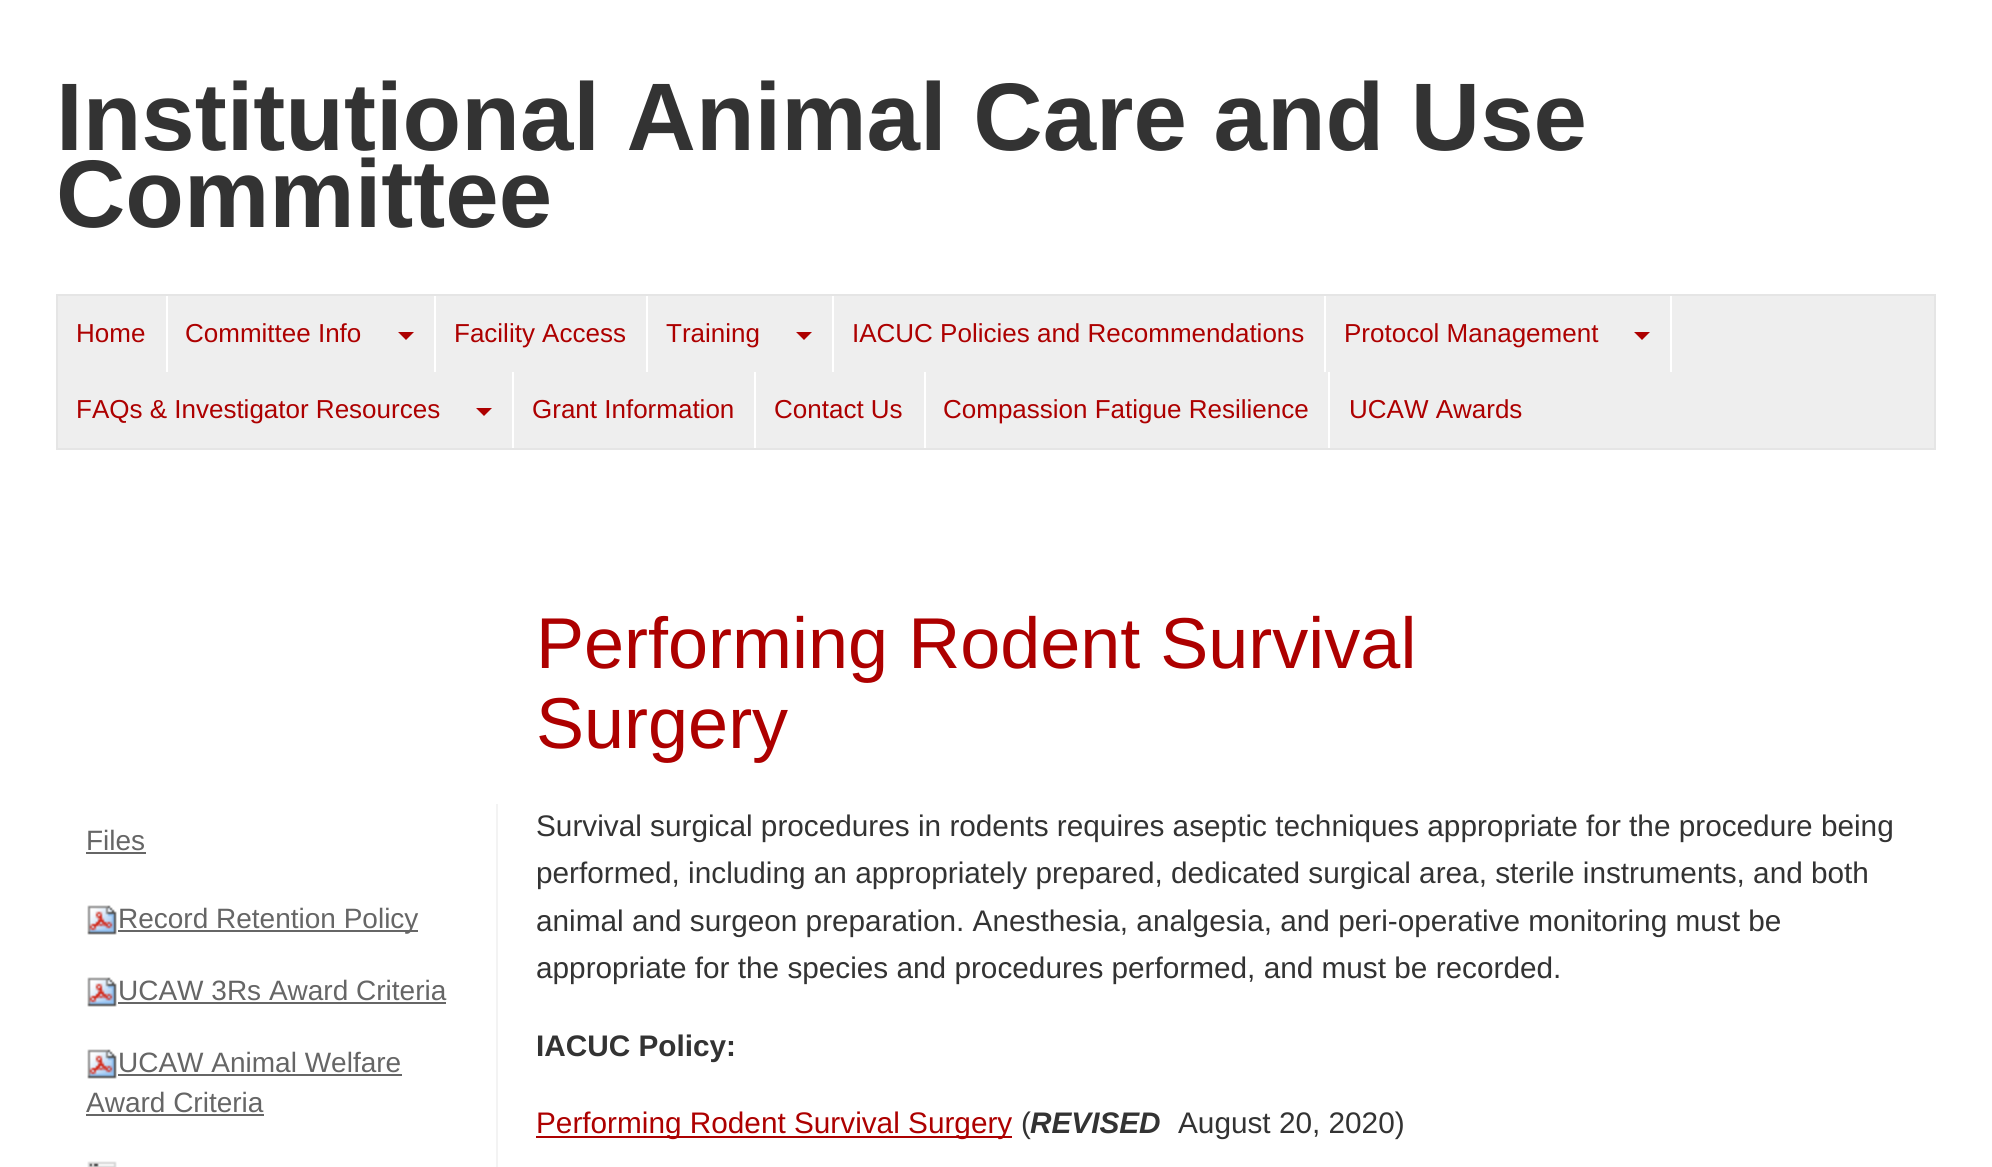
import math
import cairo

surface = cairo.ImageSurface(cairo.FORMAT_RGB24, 1992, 1167)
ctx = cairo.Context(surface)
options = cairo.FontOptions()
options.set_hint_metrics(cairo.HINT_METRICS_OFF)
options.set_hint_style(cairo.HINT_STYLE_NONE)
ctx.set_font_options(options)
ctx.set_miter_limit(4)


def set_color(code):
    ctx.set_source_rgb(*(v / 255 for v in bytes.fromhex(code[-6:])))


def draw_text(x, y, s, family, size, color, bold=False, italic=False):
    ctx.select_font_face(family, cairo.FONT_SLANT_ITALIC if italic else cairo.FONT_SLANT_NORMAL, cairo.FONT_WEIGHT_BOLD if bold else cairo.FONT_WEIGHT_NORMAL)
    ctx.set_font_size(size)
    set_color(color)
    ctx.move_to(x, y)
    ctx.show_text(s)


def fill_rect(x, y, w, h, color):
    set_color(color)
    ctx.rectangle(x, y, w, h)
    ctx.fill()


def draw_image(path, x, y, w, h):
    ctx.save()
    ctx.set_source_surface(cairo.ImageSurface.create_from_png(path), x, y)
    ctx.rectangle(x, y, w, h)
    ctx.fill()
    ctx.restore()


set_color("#ffffff")
ctx.paint()
draw_text(56, 150, "Institutional Animal Care and Use", "Liberation Sans", 96, "#333333", bold=True)
draw_text(56, 227, "Committee", "Liberation Sans", 96, "#333333", bold=True)
set_color("#eeeeee")
ctx.rectangle(57, 295, 1878, 154)
ctx.fill_preserve()
set_color("#e5e5e5")
ctx.stroke()
draw_text(76, 342, "Home", "Liberation Sans", 26, "#ad0000")
fill_rect(166, 296, 2, 76, "#ffffff")
draw_text(185, 342, "Committee Info", "Liberation Sans", 26, "#ad0000")
ctx.new_path()
ctx.move_to(398, 332)
ctx.line_to(414, 332)
ctx.line_to(406, 340)
ctx.close_path()
ctx.fill()
fill_rect(434, 296, 2, 76, "#ffffff")
draw_text(454, 342, "Facility Access", "Liberation Sans", 26, "#ad0000")
fill_rect(646, 296, 2, 76, "#ffffff")
draw_text(666, 342, "Training", "Liberation Sans", 26, "#ad0000")
ctx.new_path()
ctx.move_to(796, 332)
ctx.line_to(812, 332)
ctx.line_to(804, 340)
ctx.close_path()
ctx.fill()
fill_rect(832, 296, 2, 76, "#ffffff")
draw_text(852, 342, "IACUC Policies and Recommendations", "Liberation Sans", 26, "#ad0000")
fill_rect(1324, 296, 2, 76, "#ffffff")
draw_text(1344, 342, "Protocol Management", "Liberation Sans", 26, "#ad0000")
ctx.new_path()
ctx.move_to(1634, 332)
ctx.line_to(1650, 332)
ctx.line_to(1642, 340)
ctx.close_path()
ctx.fill()
fill_rect(1670, 296, 2, 76, "#ffffff")
draw_text(76, 418, "FAQs & Investigator Resources", "Liberation Sans", 26, "#ad0000")
ctx.new_path()
ctx.move_to(476, 408)
ctx.line_to(492, 408)
ctx.line_to(484, 416)
ctx.close_path()
ctx.fill()
fill_rect(512, 372, 2, 76, "#ffffff")
draw_text(532, 418, "Grant Information", "Liberation Sans", 26, "#ad0000")
fill_rect(754, 372, 2, 76, "#ffffff")
draw_text(774, 418, "Contact Us", "Liberation Sans", 26, "#ad0000")
fill_rect(924, 372, 2, 76, "#ffffff")
draw_text(943, 418, "Compassion Fatigue Resilience", "Liberation Sans", 26, "#ad0000")
fill_rect(1328, 372, 2, 76, "#ffffff")
draw_text(1349, 418, "UCAW Awards", "Liberation Sans", 26, "#ad0000")
draw_text(536, 668, "Performing Rodent Survival", "Liberation Sans", 72, "#ad0000")
draw_text(536, 748, "Surgery", "Liberation Sans", 72, "#ad0000")
draw_text(86, 850, "Files", "Liberation Sans", 28, "#666666")
fill_rect(86, 852, 60, 2, "#666666")
draw_image("assets/img1.png", 87, 905, 30, 30)
fill_rect(118, 930, 300, 2, "#666666")
draw_text(118, 928, "Record Retention Policy", "Liberation Sans", 28, "#666666")
draw_image("assets/img1.png", 87, 977, 30, 30)
draw_text(118, 1000, "UCAW 3Rs Award Criteria", "Liberation Sans", 28, "#666666")
fill_rect(118, 1002, 328, 2, "#666666")
draw_image("assets/img1.png", 87, 1049, 30, 30)
draw_text(118, 1072, "UCAW Animal Welfare", "Liberation Sans", 28, "#666666")
fill_rect(118, 1074, 284, 2, "#666666")
draw_text(86, 1112, "Award Criteria", "Liberation Sans", 28, "#666666")
fill_rect(86, 1114, 178, 2, "#666666")
draw_image("assets/img2.png", 87, 1161, 30, 6)
fill_rect(496, 804, 2, 363, "#f3f3f3")
draw_text(536, 836, "Survival surgical procedures in rodents requires aseptic techniques appropriate for the procedure being", "Liberation Sans", 29.75, "#333333")
draw_text(536, 883, "performed, including an appropriately prepared, dedicated surgical area, sterile instruments, and both", "Liberation Sans", 29.75, "#333333")
draw_text(536, 931, "animal and surgeon preparation. Anesthesia, analgesia, and peri-operative monitoring must be", "Liberation Sans", 29.75, "#333333")
draw_text(536, 978, "appropriate for the species and procedures performed, and must be recorded.", "Liberation Sans", 29.75, "#333333")
draw_text(536, 1056, "IACUC Policy:", "Liberation Sans", 29.75, "#333333", bold=True)
fill_rect(536, 1136, 476, 2, "#ad0000")
draw_text(536, 1133, "Performing Rodent Survival Surgery", "Liberation Sans", 29.75, "#ad0000")
draw_text(1021, 1133, "(", "Liberation Sans", 29.75, "#333333")
draw_text(1030, 1133, "REVISED", "Liberation Sans", 29.75, "#333333", bold=True, italic=True)
draw_text(1178, 1133, "August 20, 2020)", "Liberation Sans", 29.75, "#333333")
surface.write_to_png("output.png")
